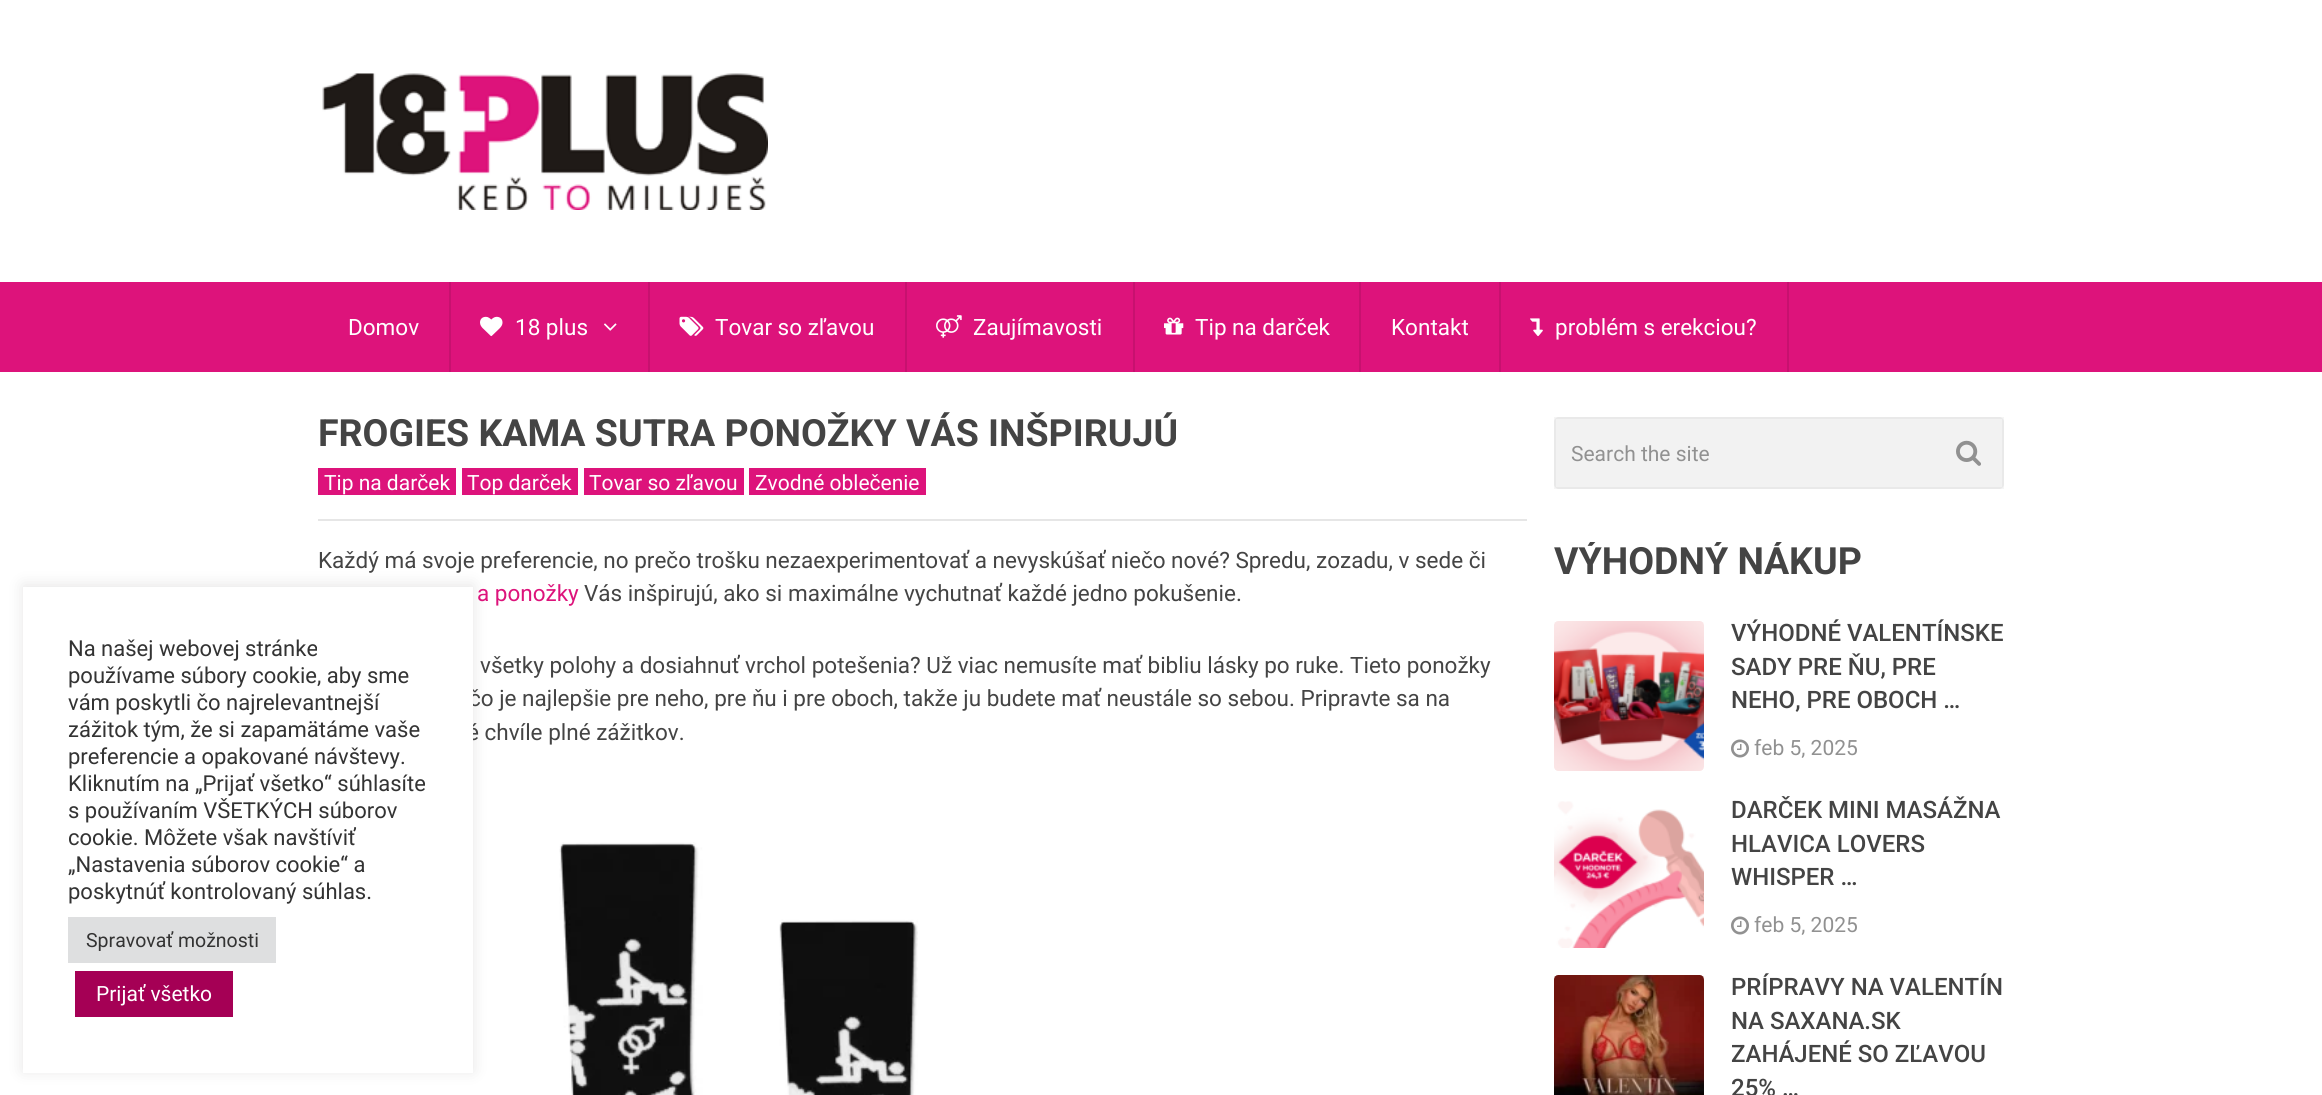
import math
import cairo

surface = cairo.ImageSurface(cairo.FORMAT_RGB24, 2322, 1095)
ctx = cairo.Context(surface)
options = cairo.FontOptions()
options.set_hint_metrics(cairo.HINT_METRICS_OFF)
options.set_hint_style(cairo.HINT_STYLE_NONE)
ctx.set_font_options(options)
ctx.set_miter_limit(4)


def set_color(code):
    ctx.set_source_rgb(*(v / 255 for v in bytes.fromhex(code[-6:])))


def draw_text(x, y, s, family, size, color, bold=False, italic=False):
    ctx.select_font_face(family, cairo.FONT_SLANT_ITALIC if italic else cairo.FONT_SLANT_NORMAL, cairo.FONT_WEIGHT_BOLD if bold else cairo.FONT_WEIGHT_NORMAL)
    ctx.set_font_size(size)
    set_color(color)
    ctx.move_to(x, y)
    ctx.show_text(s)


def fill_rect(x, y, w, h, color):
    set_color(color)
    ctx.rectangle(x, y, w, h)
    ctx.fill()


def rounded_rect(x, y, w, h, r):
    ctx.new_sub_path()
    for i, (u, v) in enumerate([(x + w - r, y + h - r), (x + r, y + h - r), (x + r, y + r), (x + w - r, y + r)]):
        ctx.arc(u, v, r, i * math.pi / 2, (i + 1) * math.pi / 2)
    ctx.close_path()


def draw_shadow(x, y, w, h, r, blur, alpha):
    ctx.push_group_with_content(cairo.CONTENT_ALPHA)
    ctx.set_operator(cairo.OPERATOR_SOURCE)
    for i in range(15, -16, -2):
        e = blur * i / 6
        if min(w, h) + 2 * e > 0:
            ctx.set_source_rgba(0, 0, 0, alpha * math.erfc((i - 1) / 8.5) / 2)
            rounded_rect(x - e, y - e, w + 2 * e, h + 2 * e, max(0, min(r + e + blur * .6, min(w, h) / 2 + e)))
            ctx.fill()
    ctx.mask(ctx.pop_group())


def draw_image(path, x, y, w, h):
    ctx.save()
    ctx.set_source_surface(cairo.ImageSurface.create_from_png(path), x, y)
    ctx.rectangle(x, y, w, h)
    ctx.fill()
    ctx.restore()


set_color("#ffffff")
ctx.paint()
set_color("#acabab")
draw_shadow(23, 585, 450, 486, 0, 7.5, 0.3)
draw_text(469, 706, "čo je najlepšie pre neho, pre ňu i pre oboch, takže ju budete mať neustále so sebou. Pripravte sa na", "Roboto", 22.5, "#444444")
draw_text(467, 740, "é chvíle plné zážitkov.", "Roboto", 22.5, "#444444")
fill_rect(23, 587, 450, 486, "#ffffff")
draw_text(68, 656, "Na našej webovej stránke", "Roboto", 22, "#333333")
draw_text(68, 683, "používame súbory cookie, aby sme", "Roboto", 22, "#333333")
draw_text(68, 710, "vám poskytli čo najrelevantnejší", "Roboto", 22, "#333333")
draw_text(68, 737, "zážitok tým, že si zapamätáme vaše", "Roboto", 22, "#333333")
draw_text(68, 764, "preferencie a opakované návštevy.", "Roboto", 22, "#333333")
draw_text(68, 791, "Kliknutím na „Prijať všetko“ súhlasíte", "Roboto", 22, "#333333")
draw_text(68, 818, "s používaním VŠETKÝCH súborov", "Roboto", 22, "#333333")
draw_text(68, 845, "cookie. Môžete však navštíviť", "Roboto", 22, "#333333")
draw_text(68, 872, "„Nastavenia súborov cookie“ a", "Roboto", 22, "#333333")
draw_text(68, 899, "poskytnúť kontrolovaný súhlas.", "Roboto", 22, "#333333")
fill_rect(68, 917, 208, 46, "#dedfe0")
draw_text(86, 947, "Spravovať možnosti", "Roboto", 19.5, "#333333")
fill_rect(75, 971, 158, 46, "#a50055")
draw_text(96, 1001, "Prijať všetko", "Roboto", 21, "#ffffff")
draw_image("assets/img1.png", 322, 73, 446, 137)
fill_rect(0, 282, 2322, 90, "#dd137b")
fill_rect(449, 282, 2, 90, "#c7116f")
draw_text(348, 335, "Domov", "Roboto", 22.5, "#ffffff")
fill_rect(648, 282, 2, 90, "#c7116f")
draw_image("assets/img2.png", 480, 316, 23, 21)
draw_text(515, 335, "18 plus", "Roboto", 22.5, "#ffffff")
draw_image("assets/img3.png", 604, 323, 13, 8)
fill_rect(905, 282, 2, 90, "#c7116f")
draw_image("assets/img4.png", 679, 316, 25, 20)
draw_text(715, 335, "Tovar so zľavou", "Roboto", 22.5, "#ffffff")
fill_rect(1133, 282, 2, 90, "#c7116f")
draw_image("assets/img5.png", 936, 315, 26, 23)
draw_text(973, 335, "Zaujímavosti", "Roboto", 22.5, "#ffffff")
fill_rect(1359, 282, 2, 90, "#c7116f")
draw_image("assets/img6.png", 1164, 317, 20, 18)
draw_text(1195, 335, "Tip na darček", "Roboto", 22.5, "#ffffff")
fill_rect(1499, 282, 2, 90, "#c7116f")
draw_text(1391, 335, "Kontakt", "Roboto", 22.5, "#ffffff")
fill_rect(1787, 282, 2, 90, "#c7116f")
draw_image("assets/img7.png", 1530, 318, 13, 19)
draw_text(1555, 335, "problém s erekciou?", "Roboto", 22.5, "#ffffff")
fill_rect(318, 519, 1209, 2, "#e6e6e6")
draw_text(318, 446, "FROGIES KAMA SUTRA PONOŽKY VÁS INŠPIRUJÚ", "Roboto", 37.5, "#444444", bold=True)
fill_rect(318, 468, 138, 27, "#dd137b")
draw_text(324, 490, "Tip na darček", "Roboto", 21, "#ffffff")
fill_rect(462, 468, 116, 27, "#dd137b")
draw_text(467, 490, "Top darček", "Roboto", 21, "#ffffff")
fill_rect(584, 468, 160, 27, "#dd137b")
draw_text(589, 490, "Tovar so zľavou", "Roboto", 21, "#ffffff")
fill_rect(749, 468, 177, 27, "#dd137b")
draw_text(755, 490, "Zvodné oblečenie", "Roboto", 21, "#ffffff")
draw_text(318, 568, "Každý má svoje preferencie, no prečo trošku nezaexperimentovať a nevyskúšať niečo nové? Spredu, zozadu, v sede či", "Roboto", 22.5, "#444444")
draw_text(477, 601, "a ponožky", "Roboto", 22.5, "#dd137b")
draw_text(584, 601, "Vás inšpirujú, ako si maximálne vychutnať každé jedno pokušenie.", "Roboto", 22.5, "#444444")
draw_text(480, 673, "všetky polohy a dosiahnuť vrchol potešenia? Už viac nemusíte mať bibliu lásky po ruke. Tieto ponožky", "Roboto", 22.5, "#444444")
draw_image("assets/img8.png", 559, 842, 359, 253)
set_color("#f2f2f2")
rounded_rect(1554, 417, 450, 72, 5)
ctx.fill()
ctx.rectangle(1555, 418, 448, 70)
ctx.set_source_rgba(0, 0, 0, 0.04)
ctx.stroke()
draw_text(1571, 461, "Search the site", "Roboto", 21, "#919191")
draw_image("assets/img9.png", 1956, 440, 25, 26)
ctx.save()
ctx.rectangle(1554, 542, 450, 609)
ctx.clip()
draw_text(1554, 574, "VÝHODNÝ NÁKUP", "Roboto", 37.5, "#444444", bold=True)
ctx.restore()
draw_image("assets/img10.png", 1554, 621, 150, 150)
draw_text(1731, 641, "VÝHODNÉ VALENTÍNSKE", "Roboto Medium", 24, "#444444")
draw_text(1731, 675, "SADY PRE ŇU, PRE", "Roboto Medium", 24, "#444444")
draw_text(1731, 708, "NEHO, PRE OBOCH …", "Roboto Medium", 24, "#444444")
draw_image("assets/img11.png", 1731, 739, 18, 19)
draw_text(1754, 755, "feb 5, 2025", "Roboto", 21, "#919191")
draw_image("assets/img12.png", 1554, 801, 150, 147)
draw_text(1731, 818, "DARČEK MINI MASÁŽNA", "Roboto Medium", 24, "#444444")
draw_text(1731, 852, "HLAVICA LOVERS", "Roboto Medium", 24, "#444444")
draw_text(1731, 885, "WHISPER …", "Roboto Medium", 24, "#444444")
draw_image("assets/img11.png", 1731, 916, 18, 19)
draw_text(1754, 932, "feb 5, 2025", "Roboto", 21, "#919191")
draw_image("assets/img13.png", 1554, 975, 150, 120)
draw_text(1731, 995, "PRÍPRAVY NA VALENTÍN", "Roboto Medium", 24, "#444444")
draw_text(1731, 1029, "NA SAXANA.SK", "Roboto Medium", 24, "#444444")
draw_text(1731, 1062, "ZAHÁJENÉ SO ZĽAVOU", "Roboto Medium", 24, "#444444")
draw_text(1731, 1096, "25% …", "Roboto Medium", 24, "#444444")
surface.write_to_png("output.png")
